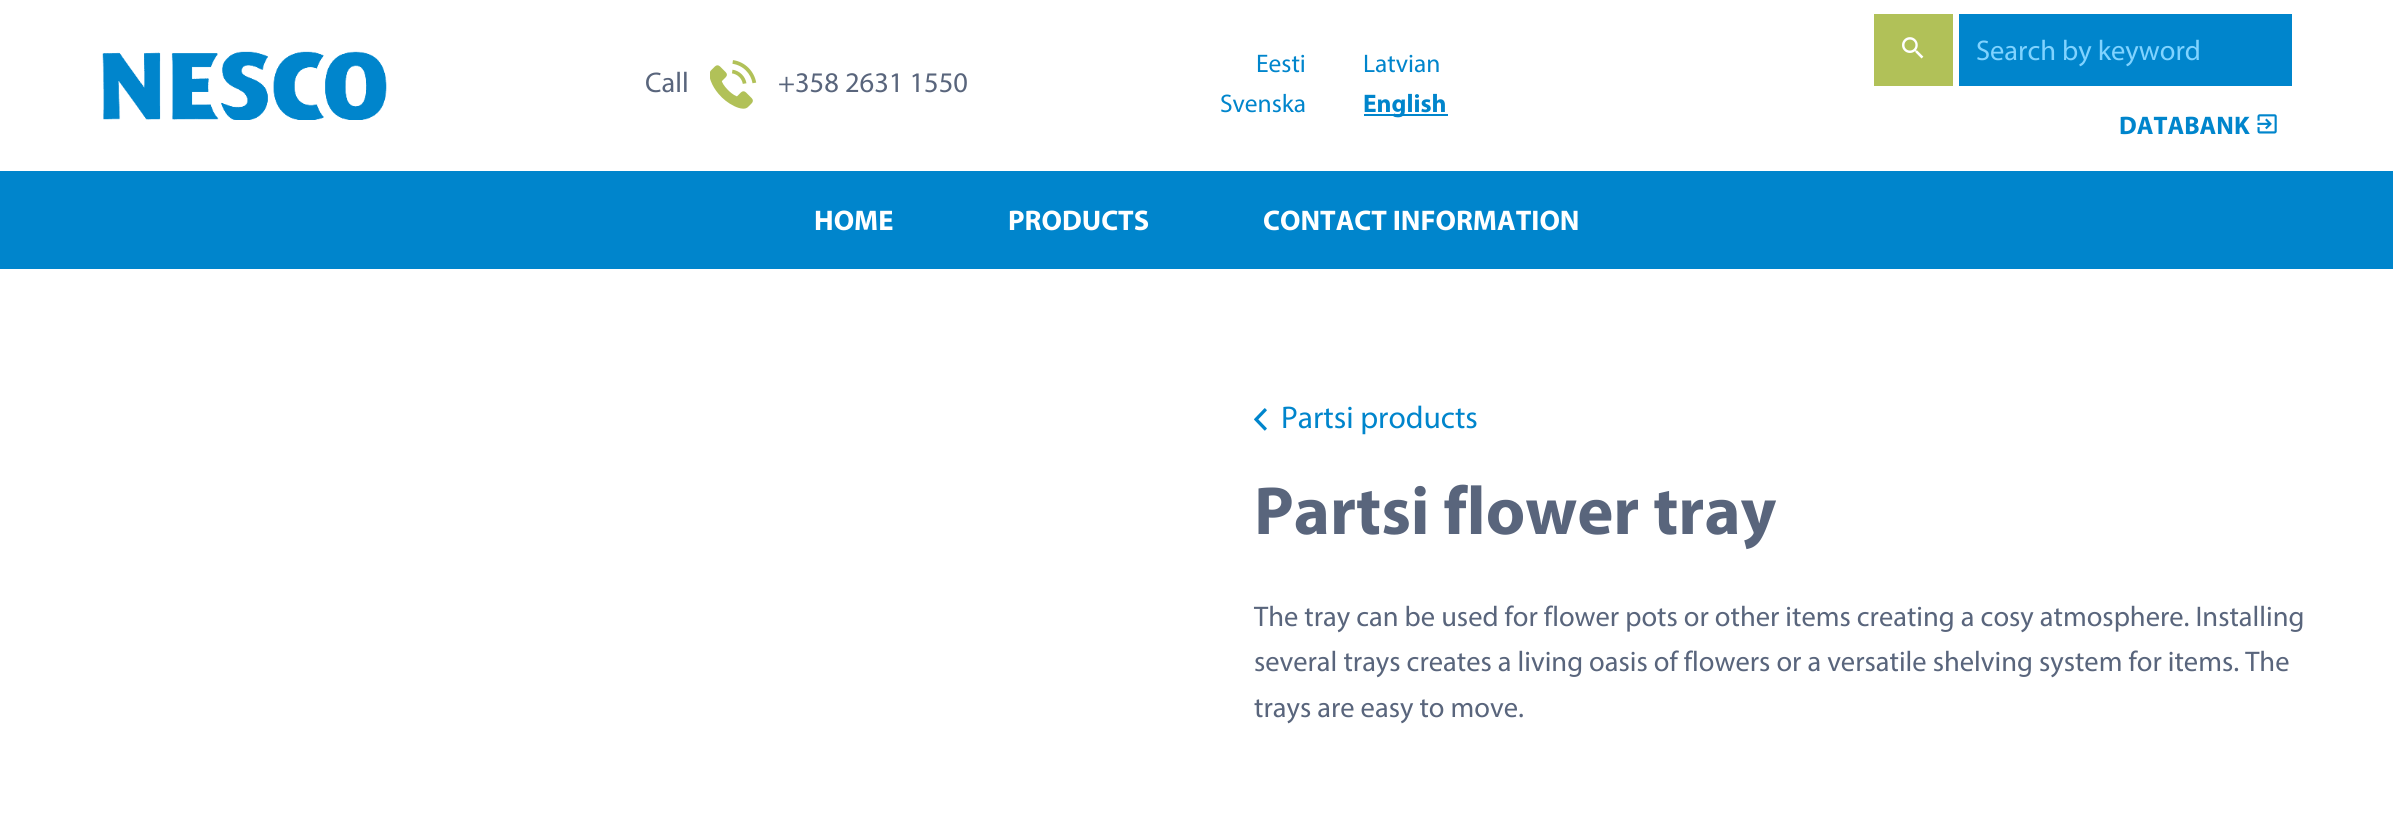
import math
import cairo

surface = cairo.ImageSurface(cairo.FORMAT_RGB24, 2393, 835)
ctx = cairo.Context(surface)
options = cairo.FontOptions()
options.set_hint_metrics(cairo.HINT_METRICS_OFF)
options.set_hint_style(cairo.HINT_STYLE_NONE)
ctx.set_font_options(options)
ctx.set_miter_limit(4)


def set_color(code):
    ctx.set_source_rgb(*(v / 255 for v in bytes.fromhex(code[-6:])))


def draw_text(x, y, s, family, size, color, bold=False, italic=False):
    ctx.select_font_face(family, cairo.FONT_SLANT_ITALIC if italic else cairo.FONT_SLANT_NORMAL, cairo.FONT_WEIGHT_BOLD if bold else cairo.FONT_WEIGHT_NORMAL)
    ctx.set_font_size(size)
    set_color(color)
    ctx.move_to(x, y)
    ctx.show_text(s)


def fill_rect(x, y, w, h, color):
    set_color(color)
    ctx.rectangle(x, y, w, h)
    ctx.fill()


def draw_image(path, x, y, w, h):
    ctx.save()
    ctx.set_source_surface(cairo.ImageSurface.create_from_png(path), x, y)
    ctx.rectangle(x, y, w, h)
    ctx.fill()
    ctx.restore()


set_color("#ffffff")
ctx.paint()
draw_image("assets/img1.png", 102, 51, 285, 69)
draw_text(645, 92, "Call", "Myriad", 28.5, "#59657c")
draw_image("assets/img2.png", 710, 60, 47, 49)
draw_text(778, 92, "+358 2631 1550", "Myriad", 28.5, "#59657c")
draw_text(1256, 72, "Eesti", "Myriad", 25.5, "#0085cc")
draw_text(1363, 72, "Latvian", "Myriad", 25.5, "#0085cc")
draw_text(1220, 112, "Svenska", "Myriad", 25.5, "#0085cc")
fill_rect(1364, 114, 84, 2, "#0085cc")
draw_text(1363, 112, "English", "Myriad", 25.5, "#0085cc", bold=True)
fill_rect(1874, 14, 79, 72, "#b1c158")
draw_image("assets/img3.png", 1902, 37, 22, 22)
fill_rect(1959, 14, 333, 72, "#0085cc")
draw_text(1976, 60, "Search by keyword", "Myriad", 28.5, "#80d3ff")
draw_text(2119, 134, "DATABANK", "Myriad", 25.5, "#0085cc", bold=True)
draw_image("assets/img4.png", 2257, 114, 20, 20)
fill_rect(0, 171, 2393, 98, "#0085cc")
draw_text(814, 230, "HOME", "Myriad", 28.5, "#ffffff", bold=True)
draw_text(1008, 230, "PRODUCTS", "Myriad", 28.5, "#ffffff", bold=True)
draw_text(1263, 230, "CONTACT INFORMATION", "Myriad", 28.5, "#ffffff", bold=True)
draw_image("assets/img5.png", 1254, 408, 13, 23)
draw_text(1281, 428, "Partsi products", "Myriad", 31.5, "#0085cc")
draw_text(1254, 534, "Partsi flower tray", "Myriad", 68.5, "#59657c", bold=True)
draw_text(1254, 626, "The tray can be used for flower pots or other items creating a cosy atmosphere. Installing", "Myriad", 28.5, "#59657c")
draw_text(1254, 671, "several trays creates a living oasis of flowers or a versatile shelving system for items. The", "Myriad", 28.5, "#59657c")
draw_text(1254, 717, "trays are easy to move.", "Myriad", 28.5, "#59657c")
surface.write_to_png("output.png")
